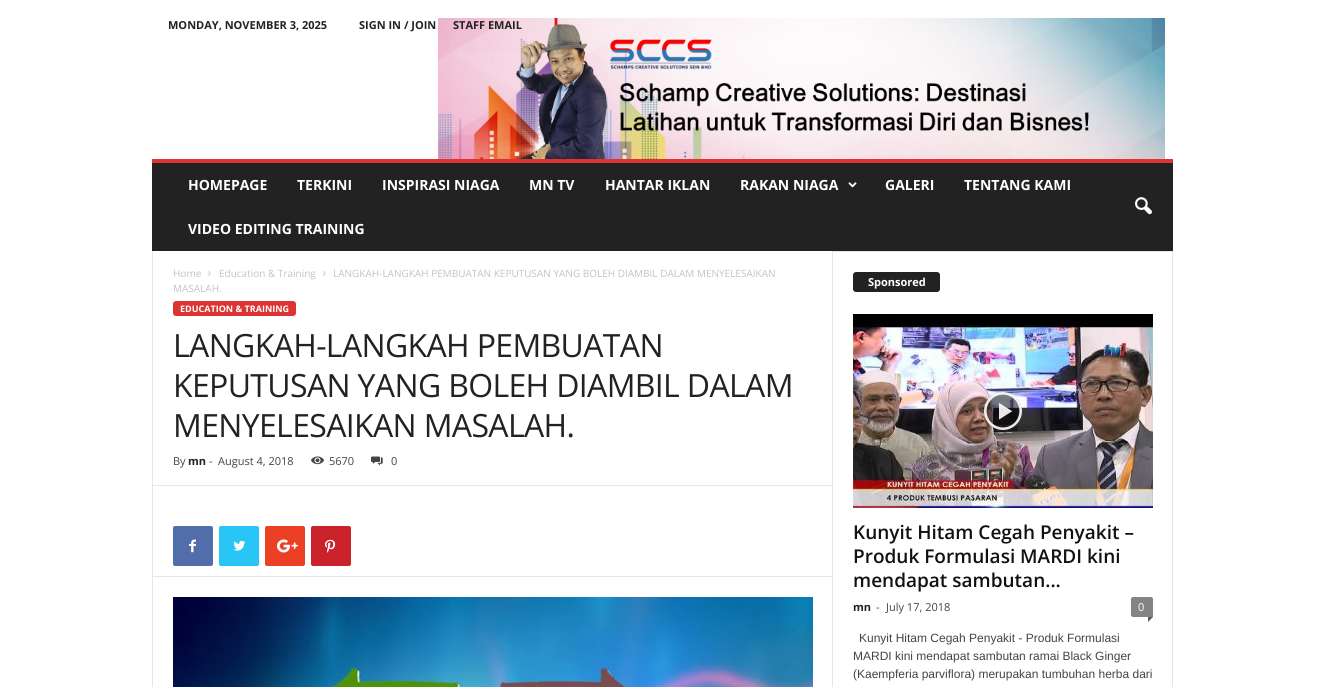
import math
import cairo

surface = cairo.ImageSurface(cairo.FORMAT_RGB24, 1324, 687)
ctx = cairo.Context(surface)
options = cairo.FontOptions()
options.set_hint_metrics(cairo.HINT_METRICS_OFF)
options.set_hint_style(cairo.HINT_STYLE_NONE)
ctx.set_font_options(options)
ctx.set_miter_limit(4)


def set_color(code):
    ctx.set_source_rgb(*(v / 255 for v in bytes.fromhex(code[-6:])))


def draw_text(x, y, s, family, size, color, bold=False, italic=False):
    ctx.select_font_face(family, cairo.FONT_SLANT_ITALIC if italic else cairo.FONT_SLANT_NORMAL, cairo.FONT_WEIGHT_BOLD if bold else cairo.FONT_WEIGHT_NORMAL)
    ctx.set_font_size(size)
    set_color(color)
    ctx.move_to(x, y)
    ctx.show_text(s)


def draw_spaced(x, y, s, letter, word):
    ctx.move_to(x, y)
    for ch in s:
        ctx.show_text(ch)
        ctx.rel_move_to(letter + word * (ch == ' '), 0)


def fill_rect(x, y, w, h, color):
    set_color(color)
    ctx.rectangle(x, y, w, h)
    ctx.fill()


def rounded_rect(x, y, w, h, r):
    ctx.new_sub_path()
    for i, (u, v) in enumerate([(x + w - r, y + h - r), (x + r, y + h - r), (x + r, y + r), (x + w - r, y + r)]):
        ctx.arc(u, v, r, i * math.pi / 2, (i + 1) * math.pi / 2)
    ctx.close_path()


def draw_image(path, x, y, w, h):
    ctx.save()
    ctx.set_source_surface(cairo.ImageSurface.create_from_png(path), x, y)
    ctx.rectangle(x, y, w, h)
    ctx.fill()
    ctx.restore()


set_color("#ffffff")
ctx.paint()
draw_text(168, 29, "MONDAY, NOVEMBER 3, 2025", "Open Sans", 11, "#222222", bold=True)
draw_text(359, 29, "SIGN IN / JOIN", "Open Sans", 11, "#222222", bold=True)
draw_image("assets/img1.png", 438, 18, 727, 141)
draw_text(453, 29, "STAFF EMAIL", "Open Sans", 11, "#222222", bold=True)
fill_rect(152, 163, 1021, 88, "#222222")
fill_rect(152, 159, 1021, 4, "#dd3333")
draw_text(188, 190, "HOMEPAGE", "Open Sans", 14, "#ffffff", bold=True)
draw_text(297, 190, "TERKINI", "Open Sans", 14, "#ffffff", bold=True)
draw_text(382, 190, "INSPIRASI NIAGA", "Open Sans", 14, "#ffffff", bold=True)
draw_text(529, 190, "MN TV", "Open Sans", 14, "#ffffff", bold=True)
draw_text(605, 190, "HANTAR IKLAN", "Open Sans", 14, "#ffffff", bold=True)
draw_text(740, 190, "RAKAN NIAGA", "Open Sans", 14, "#ffffff", bold=True)
draw_image("assets/img2.png", 848, 182, 9, 6)
draw_text(885, 190, "GALERI", "Open Sans", 14, "#ffffff", bold=True)
draw_text(964, 190, "TENTANG KAMI", "Open Sans", 14, "#ffffff", bold=True)
draw_text(188, 234, "VIDEO EDITING TRAINING", "Open Sans", 14, "#ffffff", bold=True)
draw_image("assets/img3.png", 1135, 197, 17, 18)
fill_rect(152, 251, 1, 436, "#e6e6e6")
draw_text(173, 277, "Home", "Open Sans", 10, "#c3c3c3")
draw_image("assets/img4.png", 208, 271, 3, 5)
draw_text(219, 277, "Education & Training", "Open Sans", 10, "#c3c3c3")
draw_image("assets/img4.png", 323, 271, 3, 5)
draw_text(333, 277, "LANGKAH-LANGKAH PEMBUATAN KEPUTUSAN YANG BOLEH DIAMBIL DALAM MENYELESAIKAN", "Open Sans", 10, "#c3c3c3")
draw_text(173, 292, "MASALAH.", "Open Sans", 10, "#c3c3c3")
set_color("#dd3333")
rounded_rect(173, 301, 123, 15, 3)
ctx.fill()
draw_text(180, 312, "EDUCATION & TRAINING", "Open Sans", 9, "#ffffff", bold=True)
ctx.select_font_face("Open Sans")
ctx.set_font_size(32)
set_color("#222222")
draw_spaced(173, 357, "LANGKAH-LANGKAH PEMBUATAN", -0.65, 0)
draw_spaced(173, 397, "KEPUTUSAN YANG BOLEH DIAMBIL DALAM", -0.65, 0)
draw_spaced(173, 437, "MENYELESAIKAN MASALAH.", -0.65, 0)
draw_text(173, 465, "By", "Open Sans", 11, "#444444")
draw_text(188, 465, "mn", "Open Sans", 11, "#222222", bold=True)
draw_text(209, 465, "-", "Open Sans", 11, "#444444")
draw_text(218, 465, "August 4, 2018", "Open Sans", 11, "#444444")
draw_image("assets/img5.png", 311, 456, 13, 9)
draw_text(329, 465, "5670", "Open Sans", 11, "#444444")
draw_image("assets/img6.png", 371, 456, 12, 10)
draw_text(391, 465, "0", "Open Sans", 11, "#444444")
fill_rect(153, 485, 679, 1, "#e6e6e6")
set_color("#516eab")
rounded_rect(173, 526, 40, 40, 2)
ctx.fill()
draw_image("assets/img7.png", 189, 539, 7, 14)
set_color("#29c5f6")
rounded_rect(219, 526, 40, 40, 2)
ctx.fill()
draw_image("assets/img8.png", 233, 540, 13, 11)
set_color("#eb4026")
rounded_rect(265, 526, 40, 40, 2)
ctx.fill()
draw_image("assets/img9.png", 277, 539, 21, 14)
set_color("#ca212a")
rounded_rect(311, 526, 40, 40, 2)
ctx.fill()
draw_image("assets/img10.png", 325, 539, 11, 14)
fill_rect(153, 576, 679, 1, "#e6e6e6")
draw_image("assets/img11.png", 173, 597, 640, 90)
fill_rect(832, 251, 1, 436, "#e6e6e6")
fill_rect(833, 251, 339, 1, "#e6e6e6")
set_color("#222222")
rounded_rect(853, 272, 87, 20, 3)
ctx.fill()
draw_text(868, 286, "Sponsored", "Open Sans", 11, "#ffffff", bold=True)
draw_image("assets/img12.png", 853, 314, 300, 194)
draw_image("assets/img13.png", 984, 392, 38, 38)
draw_text(853, 539, "Kunyit Hitam Cegah Penyakit –", "Open Sans SemiBold", 19, "#111111")
draw_text(853, 563, "Produk Formulasi MARDI kini", "Open Sans SemiBold", 19, "#111111")
draw_text(853, 587, "mendapat sambutan...", "Open Sans SemiBold", 19, "#111111")
draw_text(853, 611, "mn", "Open Sans", 11, "#222222", bold=True)
draw_text(876, 611, "-", "Open Sans", 11, "#444444")
draw_text(886, 611, "July 17, 2018", "Open Sans", 11, "#444444")
set_color("#848484")
ctx.new_path()
ctx.move_to(1133, 597)
ctx.line_to(1151, 597)
ctx.curve_to(1152, 597, 1153, 598, 1153, 599)
ctx.line_to(1153, 617)
ctx.line_to(1133, 617)
ctx.curve_to(1132, 617, 1131, 616, 1131, 615)
ctx.line_to(1131, 599)
ctx.curve_to(1131, 598, 1132, 597, 1133, 597)
ctx.close_path()
ctx.fill()
draw_text(1138, 611, "0", "Open Sans", 11, "#ffffff")
set_color("#5b5b5b")
ctx.new_path()
ctx.move_to(1148, 617)
ctx.line_to(1153, 617)
ctx.line_to(1148, 622)
ctx.close_path()
ctx.fill()
draw_text(859, 642, "Kunyit Hitam Cegah Penyakit - Produk Formulasi", "Liberation Sans", 12, "#444444")
draw_text(853, 660, "MARDI kini mendapat sambutan ramai Black Ginger", "Liberation Sans", 12, "#444444")
draw_text(853, 678, "(Kaempferia parviflora) merupakan tumbuhan herba dari", "Liberation Sans", 12, "#444444")
fill_rect(1172, 251, 1, 436, "#e6e6e6")
surface.write_to_png("output.png")
